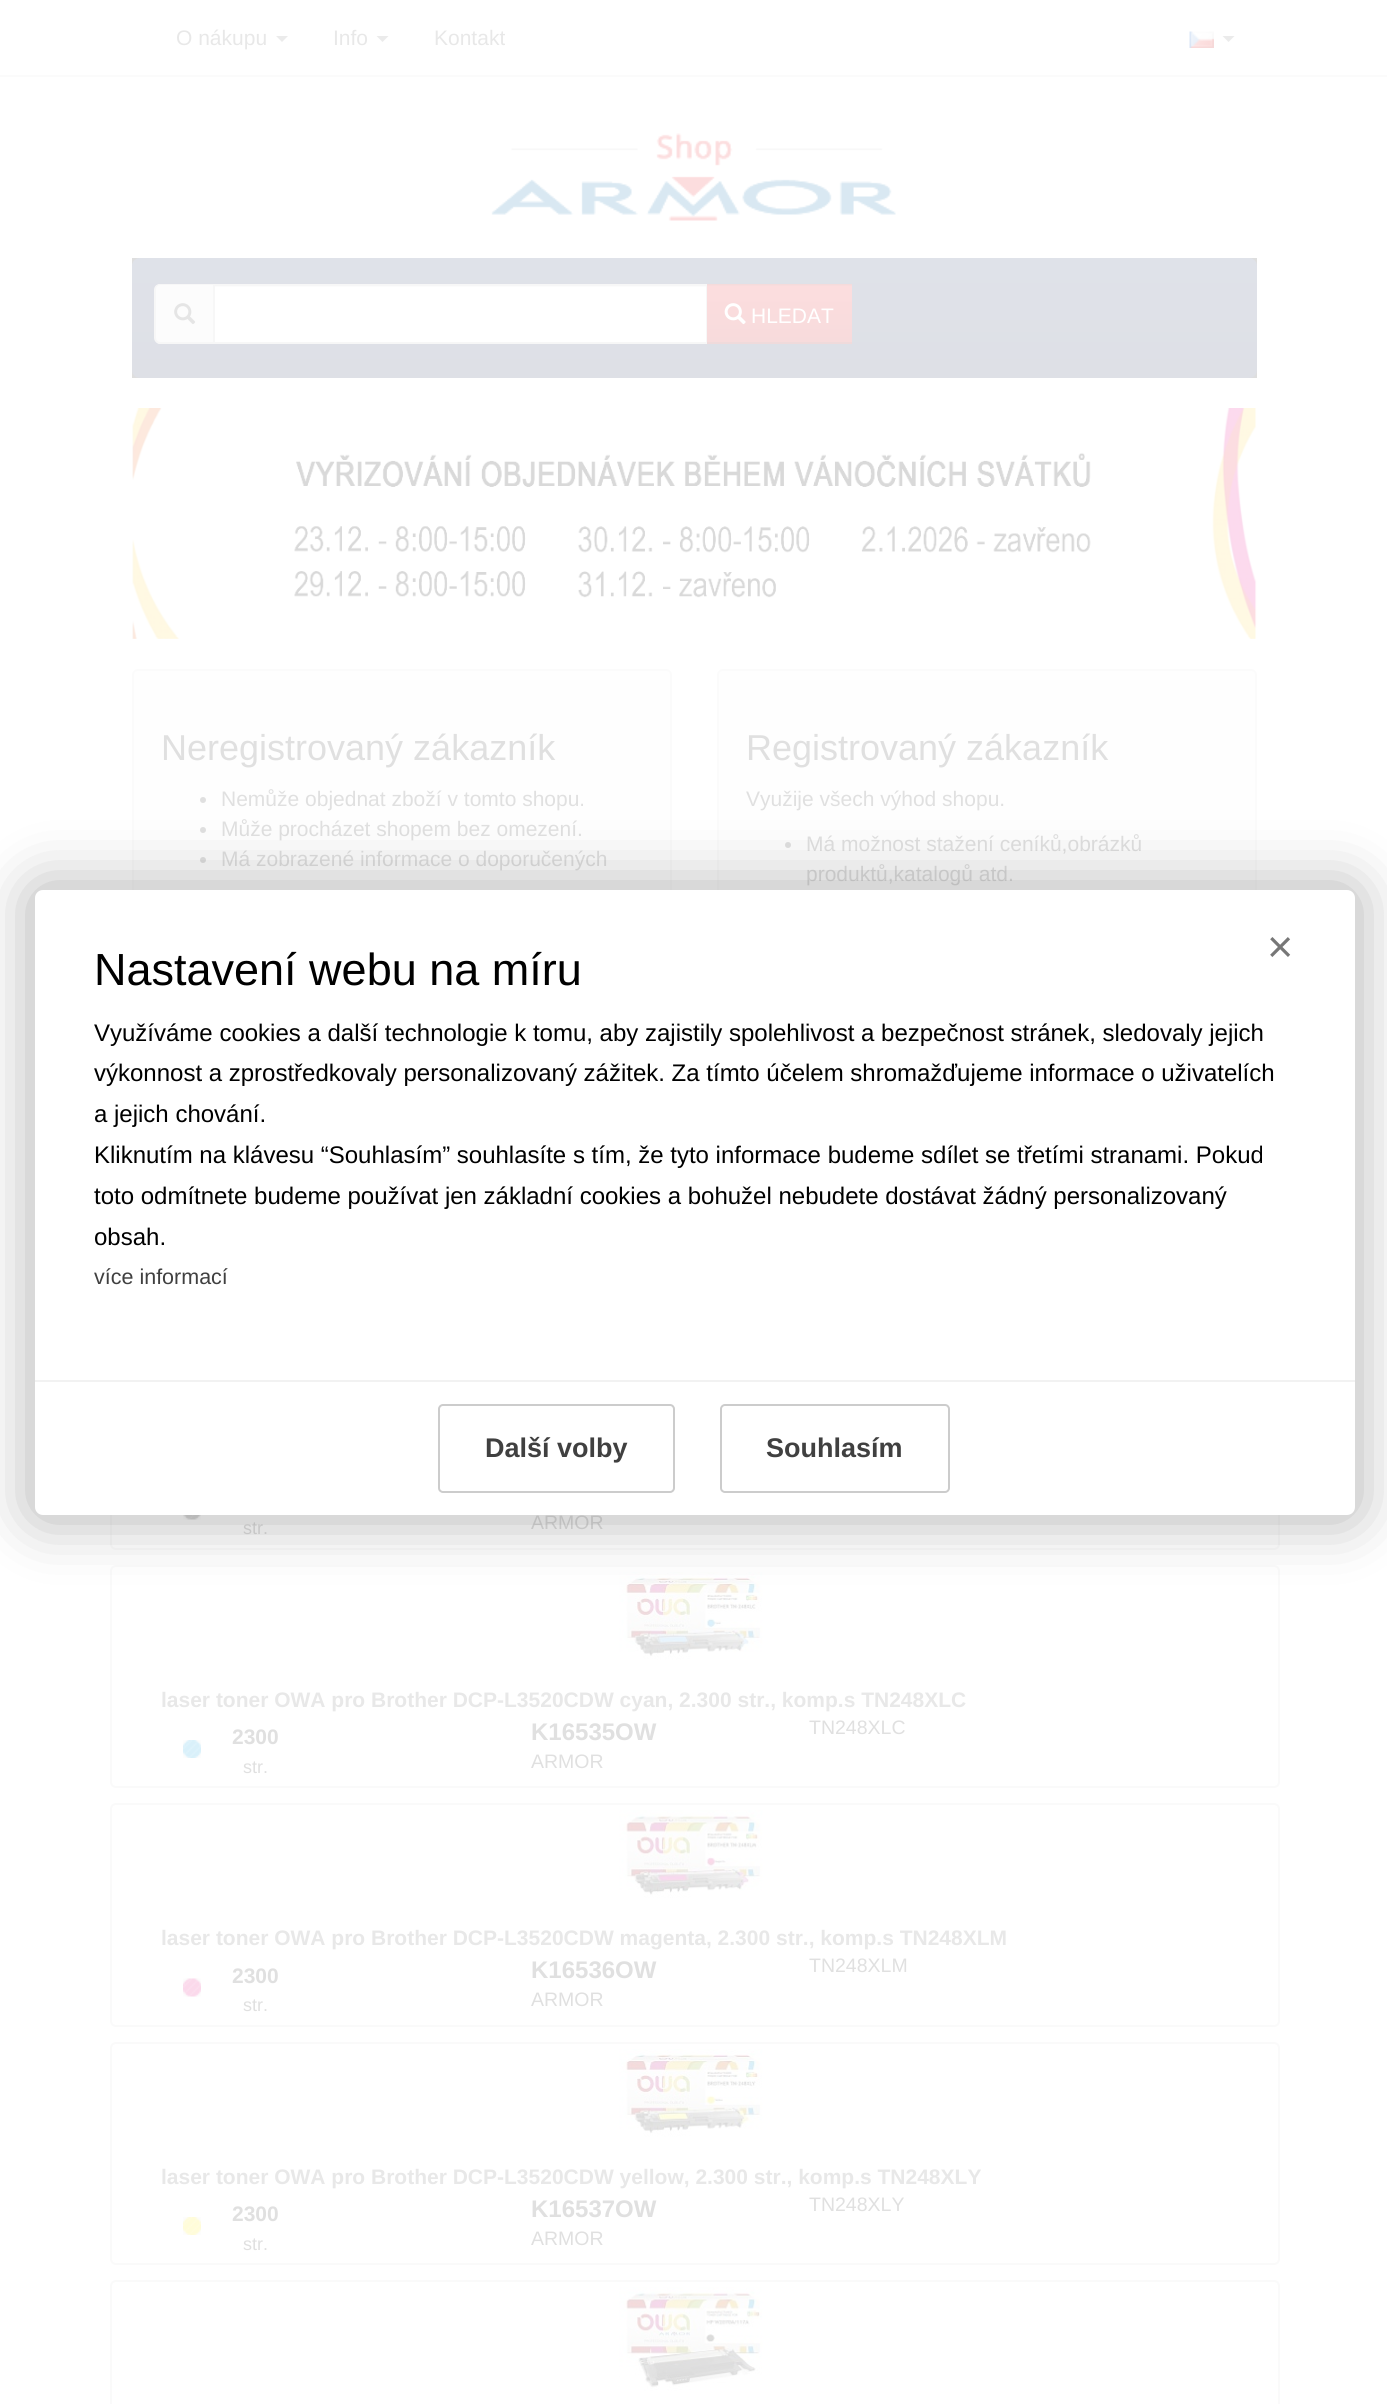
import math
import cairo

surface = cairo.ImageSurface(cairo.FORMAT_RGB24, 1387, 2404)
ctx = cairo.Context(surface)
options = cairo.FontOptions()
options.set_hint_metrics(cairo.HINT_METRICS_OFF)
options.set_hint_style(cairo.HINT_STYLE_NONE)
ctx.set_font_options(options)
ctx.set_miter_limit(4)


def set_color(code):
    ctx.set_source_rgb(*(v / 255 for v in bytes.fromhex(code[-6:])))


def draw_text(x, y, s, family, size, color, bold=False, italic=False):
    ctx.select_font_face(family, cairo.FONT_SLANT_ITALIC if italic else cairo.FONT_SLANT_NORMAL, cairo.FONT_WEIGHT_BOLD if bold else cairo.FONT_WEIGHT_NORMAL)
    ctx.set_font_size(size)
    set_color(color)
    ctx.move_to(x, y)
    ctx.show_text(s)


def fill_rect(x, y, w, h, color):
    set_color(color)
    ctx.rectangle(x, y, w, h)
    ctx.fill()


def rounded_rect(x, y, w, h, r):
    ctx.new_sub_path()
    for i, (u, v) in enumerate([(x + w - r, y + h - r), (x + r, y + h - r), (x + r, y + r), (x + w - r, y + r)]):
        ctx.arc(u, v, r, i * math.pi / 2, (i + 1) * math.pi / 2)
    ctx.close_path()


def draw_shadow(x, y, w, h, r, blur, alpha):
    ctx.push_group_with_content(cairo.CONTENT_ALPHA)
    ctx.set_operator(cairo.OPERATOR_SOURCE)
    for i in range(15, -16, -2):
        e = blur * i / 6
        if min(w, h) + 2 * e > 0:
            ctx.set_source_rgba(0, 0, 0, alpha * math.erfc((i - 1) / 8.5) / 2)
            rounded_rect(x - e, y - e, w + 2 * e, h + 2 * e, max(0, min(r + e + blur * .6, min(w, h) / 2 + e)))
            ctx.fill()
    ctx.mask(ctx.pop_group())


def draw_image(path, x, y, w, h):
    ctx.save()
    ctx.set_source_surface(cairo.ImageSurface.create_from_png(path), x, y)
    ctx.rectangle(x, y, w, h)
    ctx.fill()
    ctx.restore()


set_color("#ffffff")
ctx.paint()
fill_rect(0, 75, 1387, 2, "#fbfbfb")
draw_text(176, 45, "O nákupu", "Liberation Sans", 21, "#e8e8e8")
set_color("#ebebeb")
ctx.new_path()
ctx.move_to(276, 36)
ctx.line_to(288, 36)
ctx.line_to(282, 42)
ctx.close_path()
ctx.fill()
draw_text(333, 45, "Info", "Liberation Sans", 21, "#e8e8e8")
set_color("#ebebeb")
ctx.new_path()
ctx.move_to(376.5, 36)
ctx.line_to(388.5, 36)
ctx.line_to(382.5, 42)
ctx.close_path()
ctx.fill()
draw_text(434, 45, "Kontakt", "Liberation Sans", 21, "#e8e8e8")
draw_image("assets/img1.png", 1189, 31, 25, 17)
set_color("#ebebeb")
ctx.new_path()
ctx.move_to(1222.5, 36)
ctx.line_to(1234.5, 36)
ctx.line_to(1228.5, 42)
ctx.close_path()
ctx.fill()
draw_image("assets/img2.png", 491, 133, 405, 88)
fill_rect(132, 258, 1125, 120, "#dedede")
gradient = cairo.LinearGradient(695, 258, 695, 378)
gradient.add_color_stop_rgba(0, 0.875, 0.886, 0.914, 1)
gradient.add_color_stop_rgba(1, 0.871, 0.878, 0.902, 1)
ctx.set_source(gradient)
rounded_rect(132, 258, 1125, 120, 8)
ctx.fill()
set_color("#fcfcfc")
ctx.new_path()
ctx.move_to(161, 284)
ctx.line_to(213, 284)
ctx.line_to(213, 344)
ctx.line_to(161, 344)
ctx.curve_to(157.5, 344, 155, 341.5, 155, 338)
ctx.line_to(155, 290)
ctx.curve_to(155, 286.5, 157.5, 284, 161, 284)
ctx.close_path()
ctx.fill()
set_color("#f7f7f7")
ctx.set_fill_rule(cairo.FILL_RULE_EVEN_ODD)
ctx.new_path()
ctx.move_to(160, 284)
ctx.line_to(213, 284)
ctx.line_to(213, 344)
ctx.line_to(160, 344)
ctx.curve_to(157, 344, 154, 341, 154, 338)
ctx.line_to(154, 290)
ctx.curve_to(154, 286, 157, 284, 160, 284)
ctx.close_path()
ctx.move_to(160, 285)
ctx.line_to(213, 285)
ctx.line_to(213, 342)
ctx.line_to(160, 342)
ctx.curve_to(158, 342, 156, 340, 156, 338)
ctx.line_to(156, 290)
ctx.curve_to(156, 287, 158, 285, 160, 285)
ctx.close_path()
ctx.fill()
draw_image("assets/img3.png", 174, 303, 22, 22)
fill_rect(215, 287, 491, 55, "#ffffff")
fill_rect(215, 286, 492, 1, "#fcfcfc")
ctx.rectangle(214, 285, 493, 58)
set_color("#f7f7f7")
ctx.stroke()
fill_rect(707, 284, 145, 1, "#f7dbdc")
gradient = cairo.LinearGradient(779, 285, 779, 342)
gradient.add_color_stop_rgba(0, 0.988, 0.867, 0.871, 1)
gradient.add_color_stop_rgba(1, 0.969, 0.859, 0.863, 1)
ctx.set_source(gradient)
ctx.rectangle(707, 285, 145, 57)
ctx.fill()
ctx.set_source_rgba(0.851, 0.851, 0.851, 0.1)
ctx.rectangle(707, 284, 145, 2)
ctx.fill()
fill_rect(707, 342, 145, 2, "#efdadb")
draw_image("assets/img4.png", 724, 303, 22, 22)
draw_text(751, 323, "HLEDAT", "Liberation Sans", 21, "#ffffff")
draw_image("assets/img5.png", 132, 408, 1125, 231)
draw_image("assets/img6.png", 132, 669, 540, 221)
rounded_rect(133, 670, 538, 427, 5)
set_color("#fbfbfb")
ctx.stroke()
draw_text(161, 760, "Neregistrovaný zákazník", "Liberation Sans", 36, "#e0e0e0")
ctx.new_path()
ctx.arc(203, 800, 3, 0, 2 * math.pi)
ctx.fill()
draw_text(221, 806, "Nemůže objednat zboží v tomto shopu.", "Liberation Sans", 21, "#e0e0e0")
ctx.new_path()
ctx.arc(203, 830, 3, 0, 2 * math.pi)
ctx.fill()
draw_text(221, 836, "Může procházet shopem bez omezení.", "Liberation Sans", 21, "#e0e0e0")
ctx.new_path()
ctx.arc(203, 860, 3, 0, 2 * math.pi)
ctx.fill()
draw_text(221, 866, "Má zobrazené informace o doporučených", "Liberation Sans", 21, "#e0e0e0")
draw_image("assets/img6.png", 717, 669, 540, 221)
rounded_rect(718, 670, 538, 412, 5)
set_color("#fbfbfb")
ctx.stroke()
draw_text(746, 760, "Registrovaný zákazník", "Liberation Sans", 36, "#e0e0e0")
draw_text(746, 806, "Využije všech výhod shopu.", "Liberation Sans", 21, "#e0e0e0")
ctx.new_path()
ctx.arc(788, 845, 3, 0, 2 * math.pi)
ctx.fill()
draw_text(806, 851, "Má možnost stažení ceníků,obrázků", "Liberation Sans", 21, "#e0e0e0")
draw_text(806, 881, "produktů,katalogů atd.", "Liberation Sans", 21, "#e0e0e0")
rounded_rect(111, 1327, 1168, 222, 5)
set_color("#fafafa")
ctx.stroke()
draw_image("assets/img7.png", 183, 1515, 18, 5)
draw_text(243, 1534, "str.", "Liberation Sans", 18, "#e0e0e0")
draw_text(531, 1529, "ARMOR", "Liberation Sans", 19.5, "#e0e0e0")
rounded_rect(111, 1566, 1168, 221, 5)
set_color("#fafafa")
ctx.stroke()
draw_image("assets/img8.png", 619, 1572, 144, 88)
draw_text(161, 1707, "laser toner OWA pro Brother DCP-L3520CDW cyan, 2.300 str., komp.s TN248XLC", "Liberation Sans", 21, "#e8e8e8", bold=True)
draw_image("assets/img9.png", 183, 1740, 18, 18)
draw_text(232, 1744, "2300", "Liberation Sans", 21, "#e0e0e0", bold=True)
draw_text(243, 1773, "str.", "Liberation Sans", 18, "#e0e0e0")
draw_text(531, 1740, "K16535OW", "Liberation Sans", 24, "#e0e0e0", bold=True)
draw_text(531, 1768, "ARMOR", "Liberation Sans", 19.5, "#e0e0e0")
draw_text(809, 1734, "TN248XLC", "Liberation Sans", 19.5, "#e0e0e0")
rounded_rect(111, 1804, 1168, 222, 5)
set_color("#fafafa")
ctx.stroke()
draw_image("assets/img10.png", 619, 1810, 144, 88)
draw_text(161, 1945, "laser toner OWA pro Brother DCP-L3520CDW magenta, 2.300 str., komp.s TN248XLM", "Liberation Sans", 21, "#e8e8e8", bold=True)
draw_image("assets/img11.png", 183, 1978, 18, 19)
draw_text(232, 1983, "2300", "Liberation Sans", 21, "#e0e0e0", bold=True)
draw_text(243, 2011, "str.", "Liberation Sans", 18, "#e0e0e0")
draw_text(531, 1978, "K16536OW", "Liberation Sans", 24, "#e0e0e0", bold=True)
draw_text(531, 2006, "ARMOR", "Liberation Sans", 19.5, "#e0e0e0")
draw_text(809, 1972, "TN248XLM", "Liberation Sans", 19.5, "#e0e0e0")
rounded_rect(111, 2043, 1168, 221, 5)
set_color("#fafafa")
ctx.stroke()
draw_image("assets/img12.png", 619, 2049, 144, 88)
draw_text(161, 2184, "laser toner OWA pro Brother DCP-L3520CDW yellow, 2.300 str., komp.s TN248XLY", "Liberation Sans", 21, "#e8e8e8", bold=True)
draw_image("assets/img13.png", 183, 2217, 18, 18)
draw_text(232, 2221, "2300", "Liberation Sans", 21, "#e0e0e0", bold=True)
draw_text(243, 2250, "str.", "Liberation Sans", 18, "#e0e0e0")
draw_text(531, 2217, "K16537OW", "Liberation Sans", 24, "#e0e0e0", bold=True)
draw_text(531, 2245, "ARMOR", "Liberation Sans", 19.5, "#e0e0e0")
draw_text(809, 2211, "TN248XLY", "Liberation Sans", 19.5, "#e0e0e0")
rounded_rect(111, 2281, 1168, 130, 5)
set_color("#fafafa")
ctx.stroke()
draw_image("assets/img14.png", 619, 2287, 144, 104)
set_color("#000000")
draw_shadow(30, 885, 1329, 635, 12, 30, 0.3)
set_color("#ffffff")
rounded_rect(35, 890, 1320, 625, 8)
ctx.fill()
draw_text(1267, 962, "×", "Liberation Sans", 45, "#777777")
draw_text(94, 985, "Nastavení webu na míru", "Liberation Sans", 45, "#000000")
draw_text(94, 1041, "Využíváme cookies a další technologie k tomu, aby zajistily spolehlivost a bezpečnost stránek, sledovaly jejich", "Liberation Sans", 24, "#000000")
draw_text(94, 1081, "výkonnost a zprostředkovaly personalizovaný zážitek. Za tímto účelem shromažďujeme informace o uživatelích", "Liberation Sans", 24, "#000000")
draw_text(94, 1122, "a jejich chování.", "Liberation Sans", 24, "#000000")
draw_text(94, 1163, "Kliknutím na klávesu “Souhlasím” souhlasíte s tím, že tyto informace budeme sdílet se třetími stranami. Pokud", "Liberation Sans", 24, "#000000")
draw_text(94, 1204, "toto odmítnete budeme používat jen základní cookies a bohužel nebudete dostávat žádný personalizovaný", "Liberation Sans", 24, "#000000")
draw_text(94, 1245, "obsah.", "Liberation Sans", 24, "#000000")
draw_text(94, 1284, "více informací", "Liberation Sans", 21.5, "#404040")
fill_rect(35, 1380, 1320, 2, "#f2f2f2")
rounded_rect(439, 1405, 235, 87, 4)
set_color("#cccccc")
ctx.stroke()
draw_text(485, 1457, "Další volby", "Liberation Sans", 27, "#404040", bold=True)
rounded_rect(721, 1405, 228, 87, 4)
set_color("#cccccc")
ctx.stroke()
draw_text(766, 1457, "Souhlasím", "Liberation Sans", 27, "#404040", bold=True)
surface.write_to_png("output.png")
